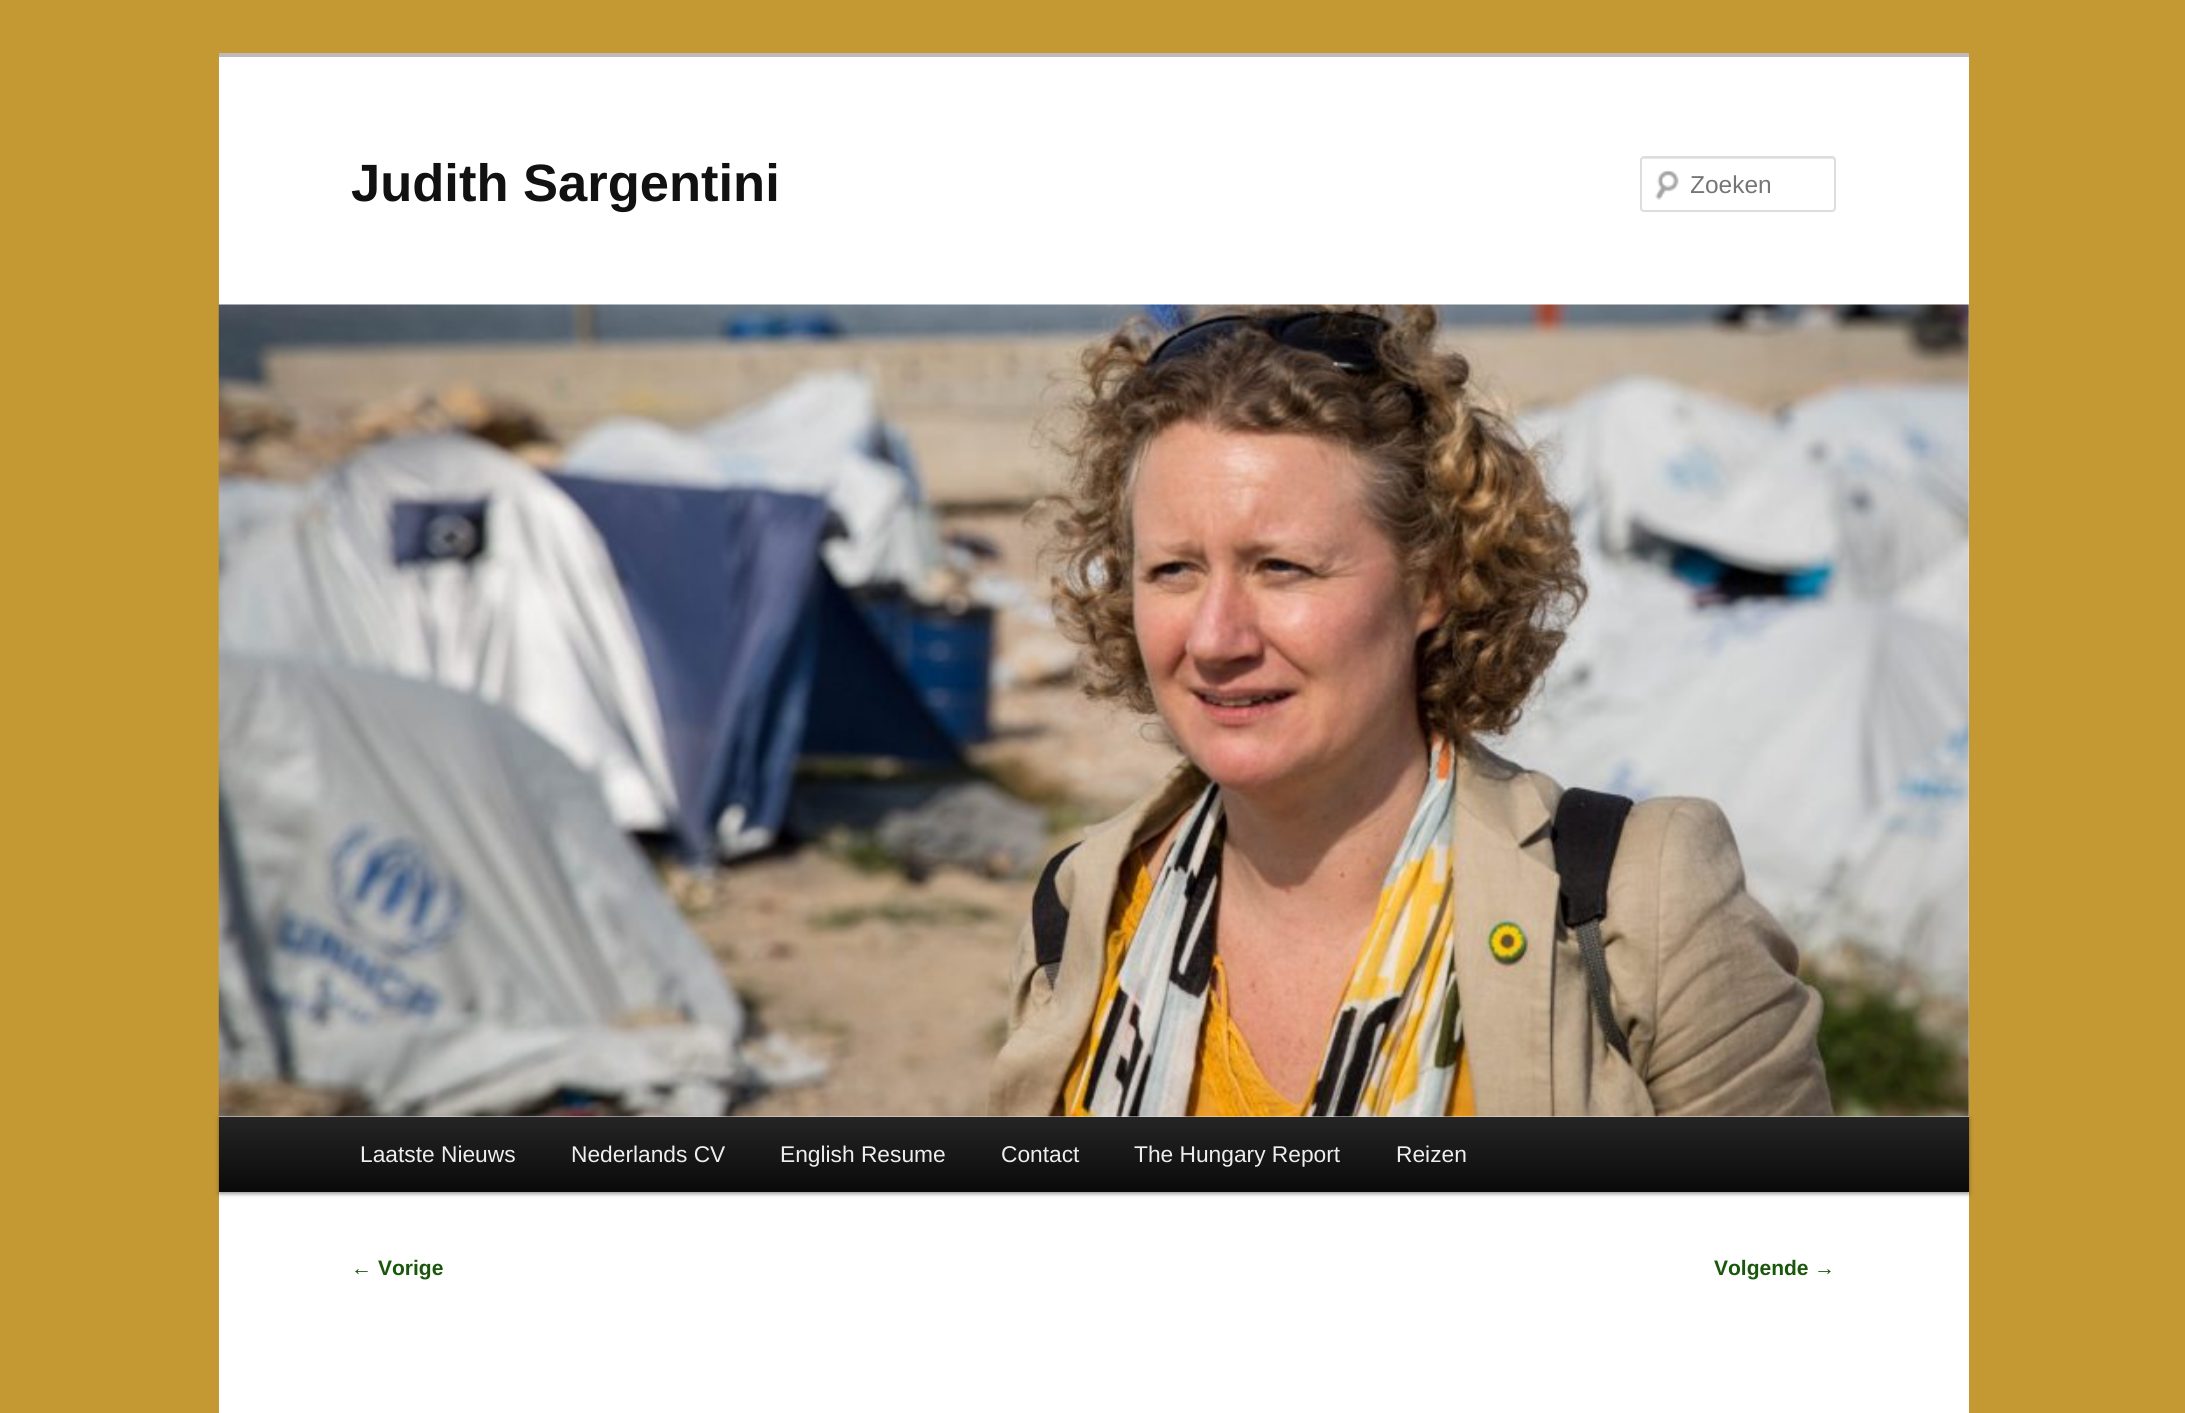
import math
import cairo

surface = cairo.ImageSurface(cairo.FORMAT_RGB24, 2185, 1413)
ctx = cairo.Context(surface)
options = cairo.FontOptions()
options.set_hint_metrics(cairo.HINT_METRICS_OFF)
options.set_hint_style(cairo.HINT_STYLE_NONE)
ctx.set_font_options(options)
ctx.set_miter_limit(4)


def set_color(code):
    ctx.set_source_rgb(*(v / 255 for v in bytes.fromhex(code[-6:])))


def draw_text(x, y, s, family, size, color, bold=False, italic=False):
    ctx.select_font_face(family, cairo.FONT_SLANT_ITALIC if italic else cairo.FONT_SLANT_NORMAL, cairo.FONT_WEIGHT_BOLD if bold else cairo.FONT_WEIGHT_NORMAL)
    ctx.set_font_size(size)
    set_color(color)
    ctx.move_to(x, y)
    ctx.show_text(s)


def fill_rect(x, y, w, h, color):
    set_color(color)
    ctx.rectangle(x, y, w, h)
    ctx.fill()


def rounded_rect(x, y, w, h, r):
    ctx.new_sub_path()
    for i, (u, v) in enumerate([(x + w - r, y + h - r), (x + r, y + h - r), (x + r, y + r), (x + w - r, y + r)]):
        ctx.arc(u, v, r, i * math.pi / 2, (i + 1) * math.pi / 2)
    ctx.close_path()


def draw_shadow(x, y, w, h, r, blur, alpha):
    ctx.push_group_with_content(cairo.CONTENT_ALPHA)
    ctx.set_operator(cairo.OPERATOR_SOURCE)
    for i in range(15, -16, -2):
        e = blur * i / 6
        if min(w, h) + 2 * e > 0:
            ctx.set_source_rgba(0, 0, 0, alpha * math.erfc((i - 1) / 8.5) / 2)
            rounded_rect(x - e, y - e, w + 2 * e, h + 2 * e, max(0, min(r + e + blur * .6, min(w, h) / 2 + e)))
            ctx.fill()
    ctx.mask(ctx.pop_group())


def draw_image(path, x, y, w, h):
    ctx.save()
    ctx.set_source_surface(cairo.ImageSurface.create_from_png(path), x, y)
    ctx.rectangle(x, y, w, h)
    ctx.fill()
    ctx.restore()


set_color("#c49833")
ctx.paint()
fill_rect(219, 57, 1750, 1356, "#ffffff")
fill_rect(219, 53, 1750, 4, "#bbbbbb")
draw_text(351, 201, "Judith Sargentini", "Liberation Sans", 52.5, "#111111", bold=True)
draw_image("assets/img1.png", 1655, 170, 24, 30)
set_color("#e6e6e6")
ctx.new_path()
ctx.move_to(1643, 159)
ctx.line_to(1832, 159)
ctx.line_to(1834, 160)
ctx.line_to(1834, 161)
ctx.line_to(1834, 160)
ctx.curve_to(1834, 159, 1833, 158, 1832, 158)
ctx.line_to(1644, 158)
ctx.curve_to(1643, 158, 1642, 159, 1642, 160)
ctx.line_to(1642, 161)
ctx.curve_to(1642, 160, 1642, 159, 1643, 159)
ctx.close_path()
ctx.fill()
rounded_rect(1641, 157, 194, 54, 3)
set_color("#dddddd")
ctx.stroke()
ctx.save()
ctx.rectangle(1691, 170, 126, 28)
ctx.clip()
draw_text(1690, 193, "Zoeken", "Liberation Sans", 24.5, "#757575")
ctx.restore()
set_color("#000000")
draw_shadow(219, 1118, 1750, 76, 0, 2, 0.4)
draw_image("assets/img2.png", 218, 304, 1751, 813)
gradient = cairo.LinearGradient(1094, 1116, 1094, 1192)
gradient.add_color_stop_rgba(0, 0.145, 0.145, 0.145, 1)
gradient.add_color_stop_rgba(1, 0.039, 0.039, 0.039, 1)
ctx.set_source(gradient)
ctx.rectangle(219, 1117, 1750, 75)
ctx.fill()
draw_text(360, 1162, "Laatste Nieuws", "Liberation Sans", 22.75, "#eeeeee")
draw_text(571, 1162, "Nederlands CV", "Liberation Sans", 22.75, "#eeeeee")
draw_text(780, 1162, "English Resume", "Liberation Sans", 22.75, "#eeeeee")
draw_text(1001, 1162, "Contact", "Liberation Sans", 22.75, "#eeeeee")
draw_text(1134, 1162, "The Hungary Report", "Liberation Sans", 22.75, "#eeeeee")
draw_text(1396, 1162, "Reizen", "Liberation Sans", 22.75, "#eeeeee")
draw_text(351, 1275, "←", "Liberation Sans", 21, "#19570b")
draw_text(378, 1275, "Vorige", "Liberation Sans", 21, "#19570b", bold=True)
draw_text(1714, 1275, "Volgende", "Liberation Sans", 21, "#19570b", bold=True)
draw_text(1814, 1275, "→", "Liberation Sans", 21, "#19570b")
surface.write_to_png("output.png")
